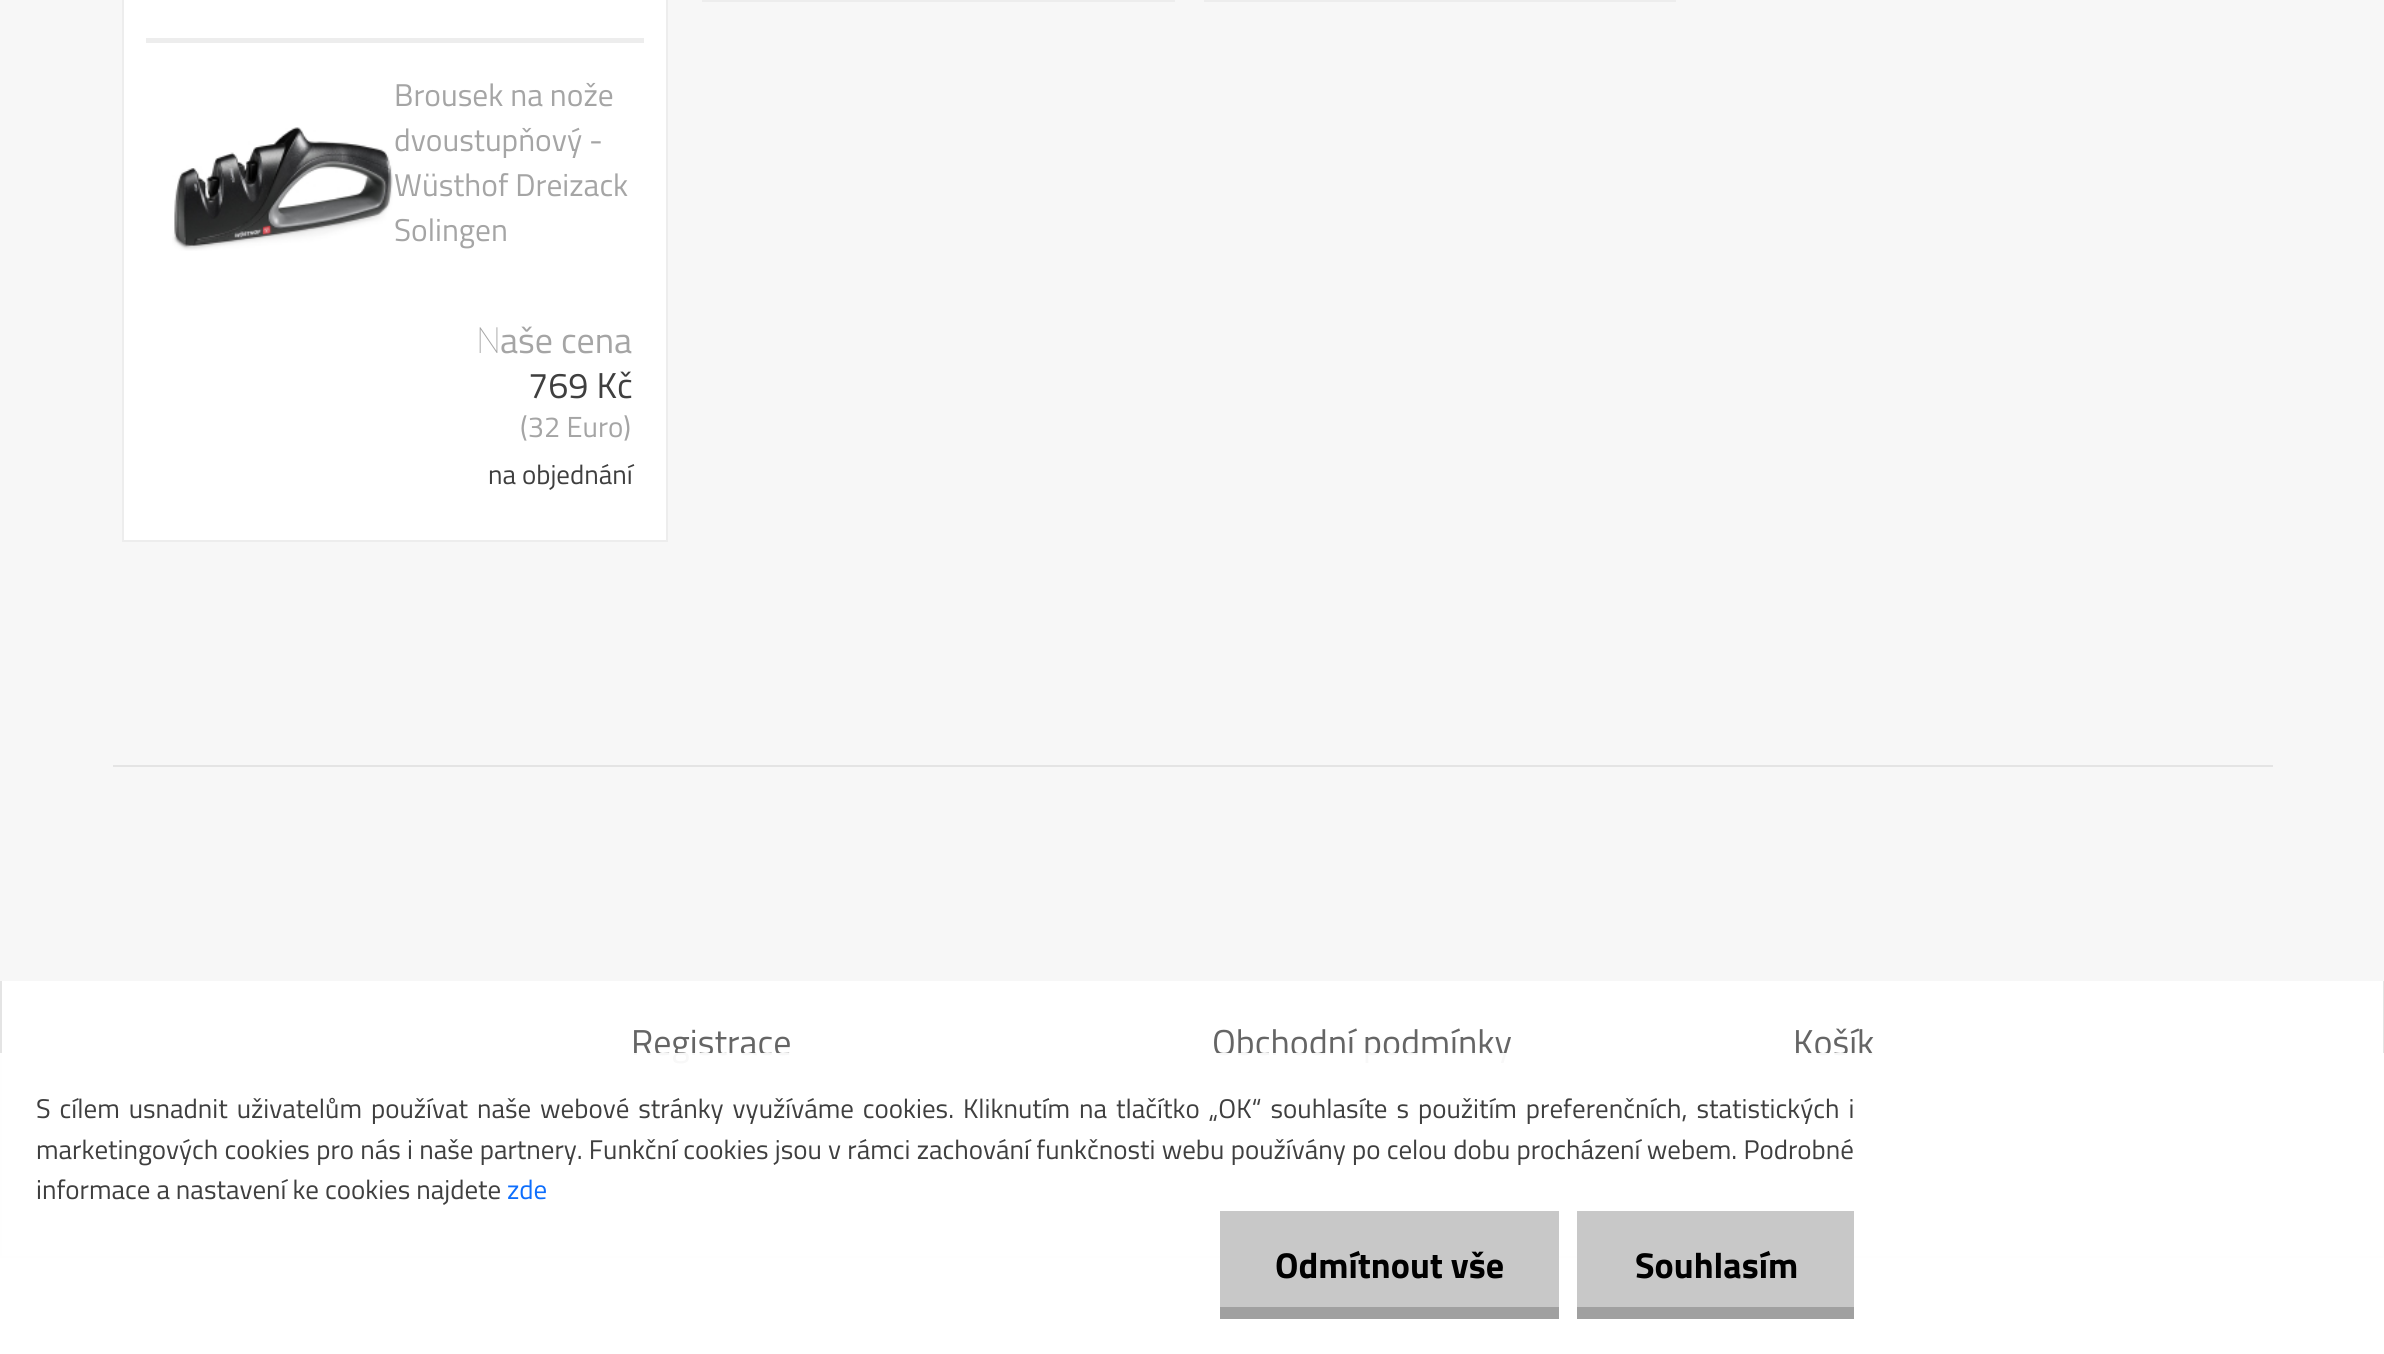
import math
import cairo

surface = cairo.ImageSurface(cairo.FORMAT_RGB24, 2384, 1354)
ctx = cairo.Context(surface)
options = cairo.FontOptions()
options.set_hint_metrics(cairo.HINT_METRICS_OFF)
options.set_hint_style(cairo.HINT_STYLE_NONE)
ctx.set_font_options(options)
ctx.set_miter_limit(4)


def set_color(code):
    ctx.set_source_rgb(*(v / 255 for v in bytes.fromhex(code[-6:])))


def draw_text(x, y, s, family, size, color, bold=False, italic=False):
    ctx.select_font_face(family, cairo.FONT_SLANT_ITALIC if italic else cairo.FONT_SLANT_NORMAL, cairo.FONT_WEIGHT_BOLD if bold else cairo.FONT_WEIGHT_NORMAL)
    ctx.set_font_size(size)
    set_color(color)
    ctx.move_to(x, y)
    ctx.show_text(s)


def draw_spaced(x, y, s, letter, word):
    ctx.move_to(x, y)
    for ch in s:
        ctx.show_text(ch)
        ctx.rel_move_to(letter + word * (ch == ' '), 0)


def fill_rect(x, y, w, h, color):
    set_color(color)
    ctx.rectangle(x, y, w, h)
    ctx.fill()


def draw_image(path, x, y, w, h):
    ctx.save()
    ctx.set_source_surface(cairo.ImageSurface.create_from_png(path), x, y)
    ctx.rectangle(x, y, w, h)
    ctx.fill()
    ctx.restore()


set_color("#f7f7f7")
ctx.paint()
ctx.rectangle(703, -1, 471, 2)
set_color("#ededed")
ctx.stroke()
ctx.rectangle(1205, -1, 470, 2)
ctx.stroke()
fill_rect(124, 0, 542, 540, "#ffffff")
set_color("#ededed")
ctx.new_path()
ctx.move_to(668, -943)
ctx.line_to(668, 542)
ctx.line_to(666, 540)
ctx.line_to(666, -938)
ctx.close_path()
ctx.fill()
fill_rect(122, 540, 546, 2, "#ededed")
ctx.new_path()
ctx.move_to(122, 542)
ctx.line_to(122, -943)
ctx.line_to(124, -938)
ctx.line_to(124, 540)
ctx.close_path()
ctx.fill()
fill_rect(146, 38, 498, 5, "#ededed")
draw_image("assets/img1.png", 172, 127, 221, 124)
draw_text(394, 106, "Brousek na nože", "Titillium Web", 31.5, "#a5a5a5")
draw_text(394, 151, "dvoustupňový -", "Titillium Web", 31.5, "#a5a5a5")
draw_text(394, 196, "Wüsthof Dreizack", "Titillium Web", 31.5, "#a5a5a5")
draw_text(394, 241, "Solingen", "Titillium Web", 31.5, "#a5a5a5")
draw_text(476, 353, "N", "Noto Sans Thin", 36, "#a5a5a5")
draw_text(500, 353, "aše cena", "Titillium Web", 36, "#a5a5a5")
draw_text(528, 398, "769 Kč", "Titillium Web", 36, "#3f3f3f")
draw_text(520, 437, "(32 Euro)", "Titillium Web", 29, "#a5a5a5")
draw_text(488, 484, "na objednání", "Titillium Web", 27, "#3f3f3f")
fill_rect(113, 765, 2160, 2, "#e4e4e4")
fill_rect(2, 981, 2381, 275, "#ffffff")
fill_rect(2383, 981, 1, 277, "#e4e4e4")
fill_rect(0, 1256, 2384, 2, "#e4e4e4")
fill_rect(0, 981, 2, 277, "#e4e4e4")
draw_text(631, 1055, "Registrace", "Titillium Web", 36, "#656565")
draw_text(1212, 1055, "Obchodní podmínky", "Titillium Web", 36, "#656565")
draw_text(1793, 1055, "Košík", "Titillium Web", 36, "#656565")
ctx.set_source_rgba(1, 1, 1, 0.95)
ctx.rectangle(0, 1053, 2384, 301)
ctx.fill()
ctx.set_font_size(27)
set_color("#3f3f3f")
draw_spaced(36, 1118, "S cílem usnadnit uživatelům používat naše webové stránky využíváme cookies. Kliknutím na tlačítko „OK“ souhlasíte s použitím preferenčních, statistických i", 0, 3)
draw_spaced(36, 1159, "marketingových cookies pro nás i naše partnery. Funkční cookies jsou v rámci zachování funkčnosti webu používány po celou dobu procházení webem. Podrobné", 0, 0.3)
draw_text(36, 1199, "informace a nastavení ke cookies najdete", "Titillium Web", 27, "#3f3f3f")
draw_text(507, 1199, "zde", "Titillium Web", 27, "#0d6efd")
fill_rect(1220, 1211, 339, 96, "#c8c8c8")
fill_rect(1220, 1307, 339, 12, "#a0a0a0")
draw_text(1275, 1278, "Odmítnout vše", "Titillium Web", 36, "#000000", bold=True)
fill_rect(1577, 1211, 277, 96, "#c8c8c8")
fill_rect(1577, 1307, 277, 12, "#a0a0a0")
draw_text(1635, 1278, "Souhlasím", "Titillium Web", 36, "#000000", bold=True)
surface.write_to_png("output.png")
